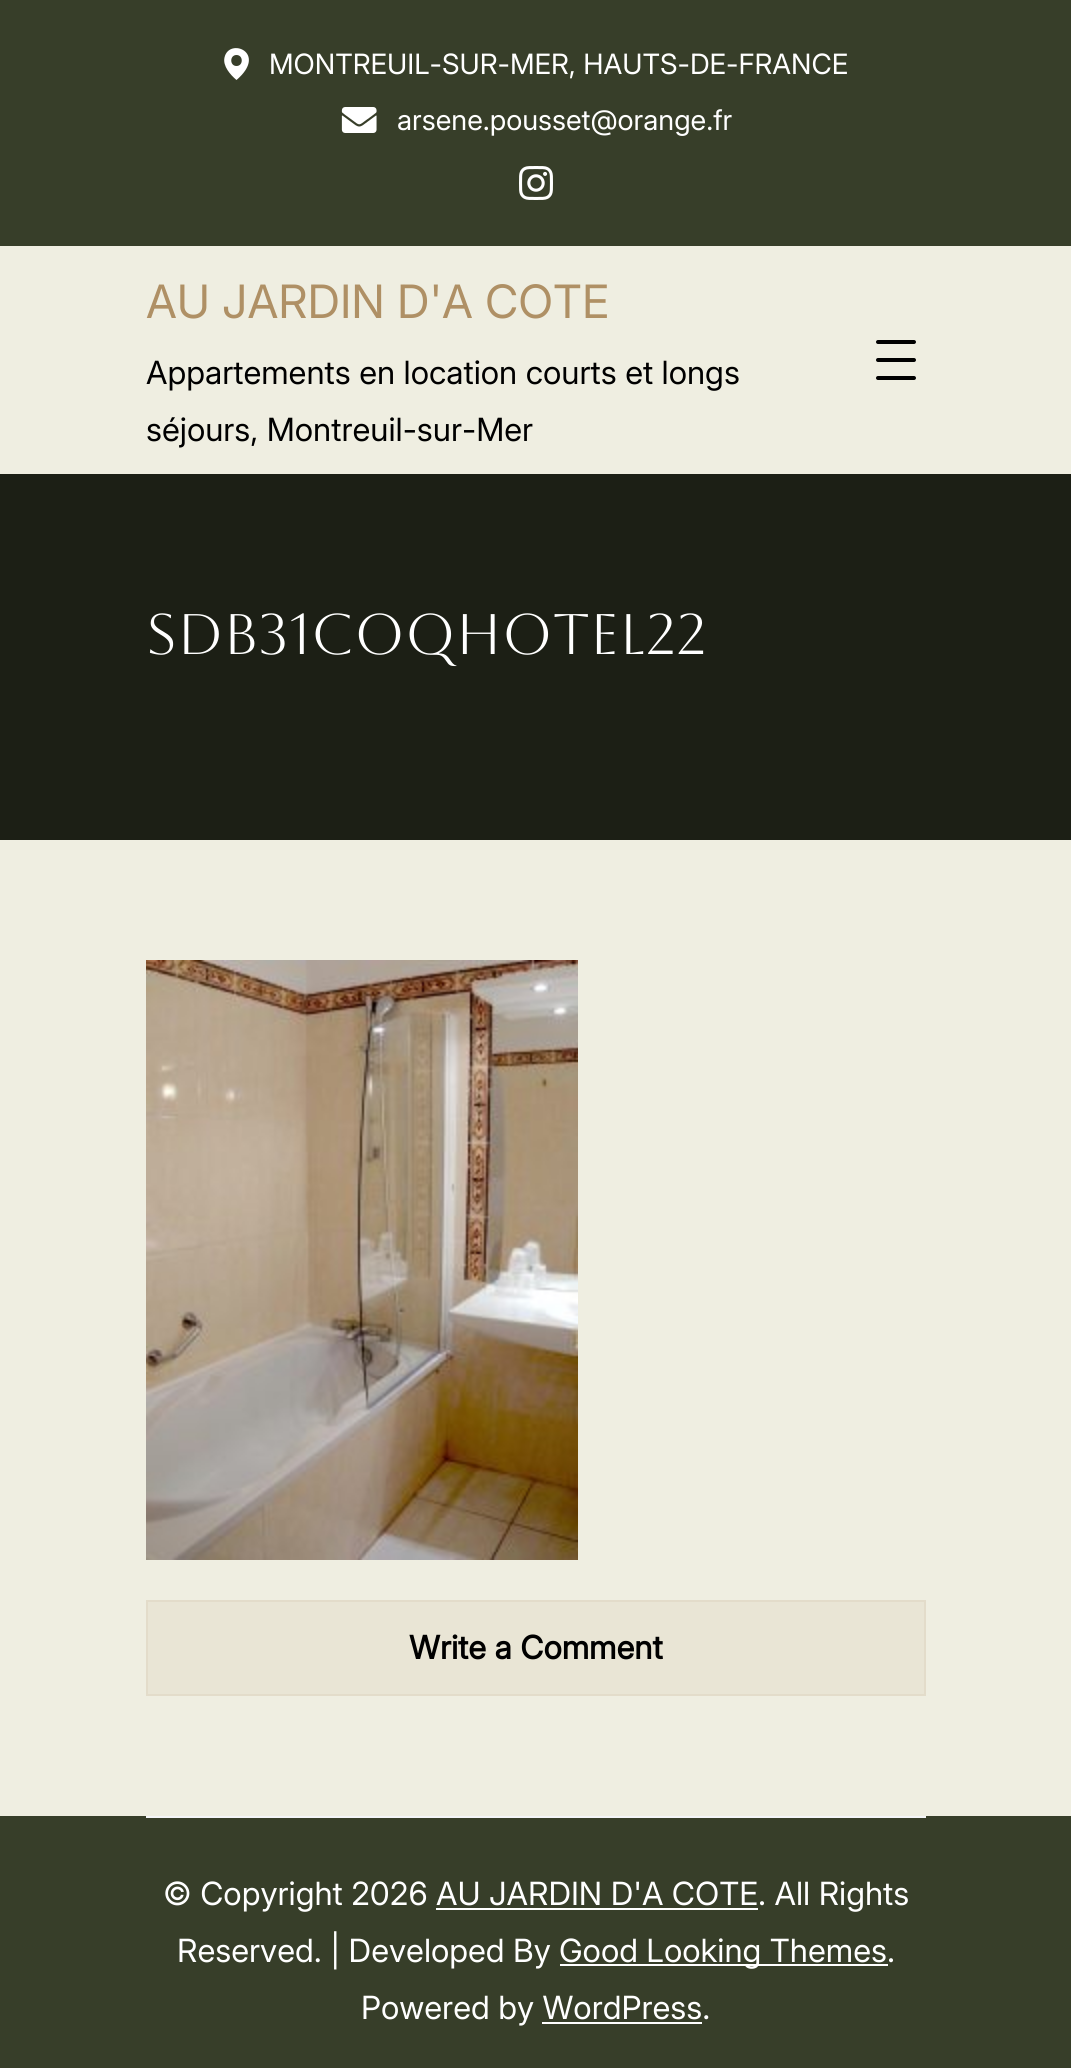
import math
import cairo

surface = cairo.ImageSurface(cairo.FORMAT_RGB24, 1071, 2068)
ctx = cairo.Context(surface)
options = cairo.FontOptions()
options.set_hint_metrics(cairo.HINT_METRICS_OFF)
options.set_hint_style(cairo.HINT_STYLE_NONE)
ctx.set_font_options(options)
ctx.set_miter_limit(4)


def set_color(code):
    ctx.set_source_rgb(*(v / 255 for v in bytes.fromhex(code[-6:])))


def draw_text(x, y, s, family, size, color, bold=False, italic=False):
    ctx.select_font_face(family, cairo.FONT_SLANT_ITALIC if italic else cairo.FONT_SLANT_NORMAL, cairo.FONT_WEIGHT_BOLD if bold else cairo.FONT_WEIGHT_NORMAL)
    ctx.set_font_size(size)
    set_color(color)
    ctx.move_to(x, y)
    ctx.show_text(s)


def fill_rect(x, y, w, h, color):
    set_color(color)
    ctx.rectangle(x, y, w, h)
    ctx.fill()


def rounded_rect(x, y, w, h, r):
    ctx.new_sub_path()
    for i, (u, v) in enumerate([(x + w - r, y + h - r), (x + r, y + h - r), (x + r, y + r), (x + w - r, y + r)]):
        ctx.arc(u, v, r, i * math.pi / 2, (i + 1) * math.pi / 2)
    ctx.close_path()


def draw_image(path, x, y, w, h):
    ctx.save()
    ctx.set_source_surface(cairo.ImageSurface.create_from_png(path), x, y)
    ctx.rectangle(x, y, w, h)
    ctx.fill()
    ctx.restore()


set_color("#efeee1")
ctx.paint()
fill_rect(0, 0, 1071, 246, "#373e29")
set_color("#ffffff")
ctx.new_path()
ctx.move_to(236.5, 80)
ctx.curve_to(230.5, 75, 222.5, 66, 224.5, 57.5)
ctx.curve_to(229, 37, 268.5, 52.5, 236.5, 80)
ctx.close_path()
ctx.move_to(236.5, 55)
ctx.curve_to(229.5, 55, 229.5, 66, 236.5, 66)
ctx.curve_to(243.5, 66, 243.5, 55, 236.5, 55)
ctx.close_path()
ctx.fill()
draw_text(269, 74, "MONTREUIL-SUR-MER, HAUTS-DE-FRANCE", "Inter", 28, "#ffffff")
draw_image("assets/img1.png", 341, 107, 36, 26)
draw_text(397, 130, "arsene.pousset@orange.fr", "Inter", 28, "#ffffff")
draw_image("assets/img2.png", 519, 166, 34, 34)
draw_text(146, 318, "AU JARDIN D'A COTE", "Inter", 46, "#af9065")
draw_text(146, 384, "Appartements en location courts et longs", "Inter", 32, "#000000")
draw_text(146, 441, "séjours, Montreuil-sur-Mer", "Inter", 32, "#000000")
rounded_rect(876, 340, 40, 4, 2)
ctx.fill()
rounded_rect(876, 358, 40, 4, 2)
ctx.fill()
rounded_rect(876, 376, 40, 4, 2)
ctx.fill()
fill_rect(0, 474, 1071, 366, "#1c1f15")
draw_text(146, 654, "SDB31COQHOTEL22", "Aboreto", 57, "#ffffff")
draw_image("assets/img3.png", 146, 960, 432, 600)
set_color("#e9e5d5")
ctx.rectangle(147, 1601, 778, 94)
ctx.fill_preserve()
set_color("#e3dcca")
ctx.stroke()
draw_text(409, 1659, "Write a Comment", "Inter", 32, "#000000", bold=True)
fill_rect(0, 1816, 1071, 252, "#373e29")
fill_rect(146, 1816, 780, 2, "#f4f5f7")
draw_text(163, 1905, "© Copyright 2026 AU JARDIN D'A COTE. All Rights", "Inter", 32, "#ffffff")
fill_rect(436, 1908, 322, 2, "#ffffff")
draw_text(177, 1962, "Reserved. | Developed By", "Inter", 32, "#ffffff")
fill_rect(560, 1964, 328, 2, "#ffffff")
draw_text(559, 1962, "Good Looking Themes.", "Inter", 32, "#ffffff")
draw_text(361, 2019, "Powered by WordPress.", "Inter", 32, "#ffffff")
fill_rect(542, 2022, 160, 2, "#ffffff")
surface.write_to_png("output.png")
